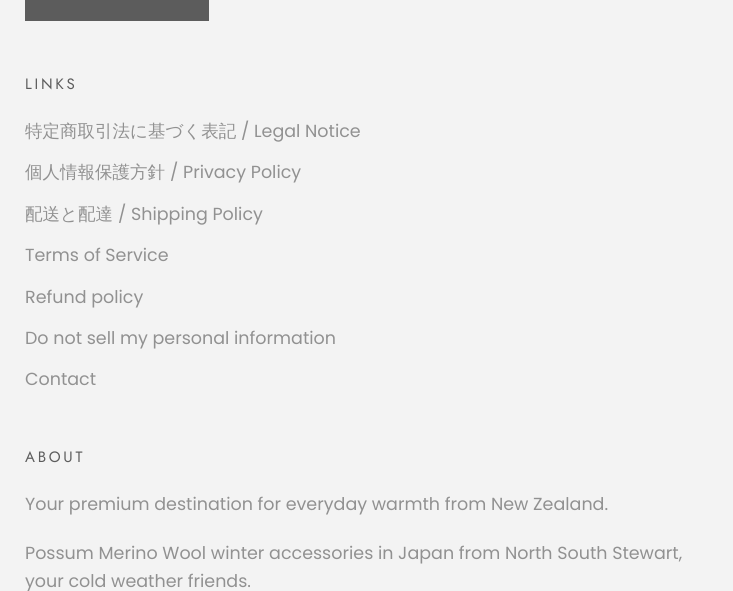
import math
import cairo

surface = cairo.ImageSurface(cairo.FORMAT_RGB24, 733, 591)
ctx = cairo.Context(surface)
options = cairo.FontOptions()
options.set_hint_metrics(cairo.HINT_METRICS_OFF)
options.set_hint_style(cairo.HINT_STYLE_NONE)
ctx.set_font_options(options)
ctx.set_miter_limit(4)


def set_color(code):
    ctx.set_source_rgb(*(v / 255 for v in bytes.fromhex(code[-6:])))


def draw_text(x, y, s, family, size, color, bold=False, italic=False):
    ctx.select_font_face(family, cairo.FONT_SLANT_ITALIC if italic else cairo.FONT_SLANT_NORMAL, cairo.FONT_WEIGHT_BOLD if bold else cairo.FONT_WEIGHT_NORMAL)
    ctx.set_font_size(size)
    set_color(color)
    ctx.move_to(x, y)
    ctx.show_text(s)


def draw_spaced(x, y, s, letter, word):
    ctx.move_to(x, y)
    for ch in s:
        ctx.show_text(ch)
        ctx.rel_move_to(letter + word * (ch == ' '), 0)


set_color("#f3f3f3")
ctx.paint()
set_color("#5c5c5c")
ctx.rectangle(25.5, -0.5, 183, 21)
ctx.fill_preserve()
ctx.set_line_width(1)
ctx.stroke()
ctx.select_font_face("Jost")
ctx.set_font_size(15)
draw_spaced(25, 89, "LINKS", 2.75, 0)
draw_text(25, 137, "特定商取引法に基づく表記", "WenQuanYi Zen Hei Medium", 17.5, "#919191")
draw_text(241, 137, "/ Legal Notice", "Poppins", 17.5, "#919191")
draw_text(25, 178, "個人情報保護方針", "WenQuanYi Zen Hei Medium", 17.5, "#919191")
draw_text(170, 178, "/ Privacy Policy", "Poppins", 17.5, "#919191")
draw_text(25, 220, "配送と配達", "WenQuanYi Zen Hei Medium", 17.5, "#919191")
draw_text(118, 220, "/ Shipping Policy", "Poppins", 17.5, "#919191")
draw_text(25, 261, "Terms of Service", "Poppins", 17.5, "#919191")
draw_text(25, 303, "Refund policy", "Poppins", 17.5, "#919191")
draw_text(25, 344, "Do not sell my personal information", "Poppins", 17.5, "#919191")
draw_text(25, 385, "Contact", "Poppins", 17.5, "#919191")
ctx.select_font_face("Jost")
ctx.set_font_size(15)
set_color("#5c5c5c")
draw_spaced(25, 462, "ABOUT", 2.75, 0)
draw_text(25, 510, "Your premium destination for everyday warmth from New Zealand.", "Poppins", 17.5, "#919191")
draw_text(25, 559, "Possum Merino Wool winter accessories in Japan from North South Stewart,", "Poppins", 17.5, "#919191")
draw_text(25, 587, "your cold weather friends.", "Poppins", 17.5, "#919191")
surface.write_to_png("output.png")
